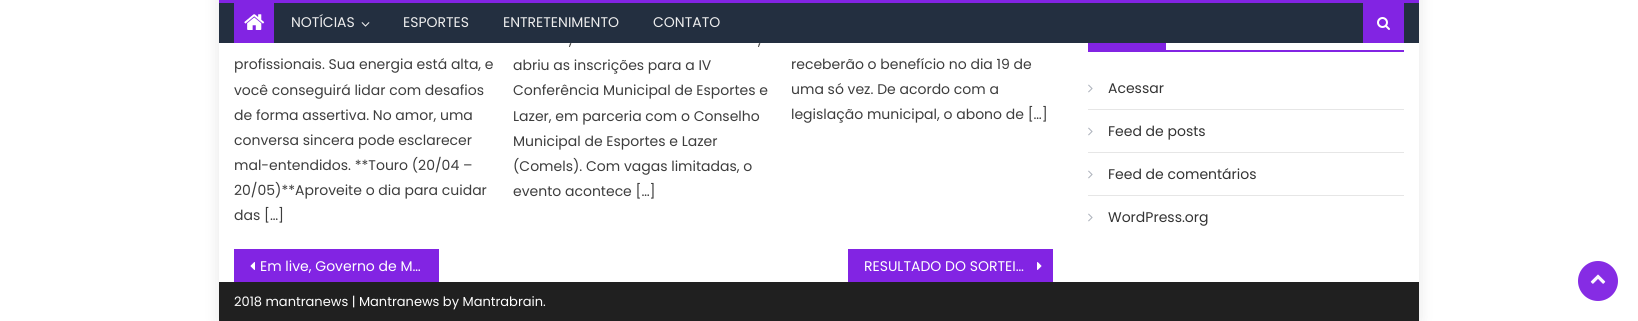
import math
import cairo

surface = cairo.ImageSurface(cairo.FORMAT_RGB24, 1638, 321)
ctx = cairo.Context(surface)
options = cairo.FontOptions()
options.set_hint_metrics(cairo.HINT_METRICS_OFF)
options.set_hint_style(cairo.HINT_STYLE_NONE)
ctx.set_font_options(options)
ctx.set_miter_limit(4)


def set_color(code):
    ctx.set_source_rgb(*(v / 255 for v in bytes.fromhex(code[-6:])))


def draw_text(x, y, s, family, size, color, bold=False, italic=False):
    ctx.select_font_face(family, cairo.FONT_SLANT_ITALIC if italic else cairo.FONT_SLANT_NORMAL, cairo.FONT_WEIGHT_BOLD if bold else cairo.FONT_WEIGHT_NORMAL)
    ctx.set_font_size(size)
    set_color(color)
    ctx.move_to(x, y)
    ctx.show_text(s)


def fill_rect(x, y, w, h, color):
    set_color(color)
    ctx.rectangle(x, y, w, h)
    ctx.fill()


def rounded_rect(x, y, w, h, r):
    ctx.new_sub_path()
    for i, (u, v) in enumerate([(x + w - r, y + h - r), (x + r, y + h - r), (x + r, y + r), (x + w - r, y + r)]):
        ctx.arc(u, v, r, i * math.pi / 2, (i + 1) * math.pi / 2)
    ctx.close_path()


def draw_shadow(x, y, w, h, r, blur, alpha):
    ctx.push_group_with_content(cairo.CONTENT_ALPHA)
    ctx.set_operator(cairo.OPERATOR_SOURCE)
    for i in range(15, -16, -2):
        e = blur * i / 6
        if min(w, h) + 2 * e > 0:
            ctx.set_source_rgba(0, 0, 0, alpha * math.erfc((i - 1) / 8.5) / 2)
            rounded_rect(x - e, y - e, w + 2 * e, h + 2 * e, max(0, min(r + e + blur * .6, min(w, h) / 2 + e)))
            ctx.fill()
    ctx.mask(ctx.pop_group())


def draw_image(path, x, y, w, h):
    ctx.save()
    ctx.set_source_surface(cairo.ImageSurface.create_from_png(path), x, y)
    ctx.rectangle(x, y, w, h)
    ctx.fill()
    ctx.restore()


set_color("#ffffff")
ctx.paint()
ctx.save()
ctx.set_fill_rule(cairo.FILL_RULE_EVEN_ODD)
ctx.new_path()
ctx.move_to(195, 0)
ctx.line_to(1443, 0)
ctx.line_to(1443, 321)
ctx.line_to(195, 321)
ctx.close_path()
ctx.move_to(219, -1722)
ctx.line_to(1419, -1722)
ctx.line_to(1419, 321)
ctx.line_to(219, 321)
ctx.close_path()
ctx.clip()
set_color("#000000")
draw_shadow(219, -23, 1200, 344, 0, 7.5, 0.1)
ctx.restore()
fill_rect(219, 3, 1200, 40, "#232f40")
fill_rect(219, 0, 1200, 3, "#8224e3")
fill_rect(234, 3, 40, 40, "#8224e3")
draw_image("assets/img1.png", 244, 14, 21, 16)
draw_text(291, 27, "NOTÍCIAS", "Poppins", 14, "#eeeeee")
draw_image("assets/img2.png", 361, 22, 9, 5)
draw_text(403, 27, "ESPORTES", "Poppins", 14, "#eeeeee")
draw_text(503, 27, "ENTRETENIMENTO", "Poppins", 14, "#eeeeee")
draw_text(653, 27, "CONTATO", "Poppins", 14, "#eeeeee")
fill_rect(1363, 3, 41, 40, "#8224e3")
draw_image("assets/img3.png", 1377, 17, 13, 13)
draw_text(234, 69, "profissionais. Sua energia está alta, e", "Poppins", 14, "#3d3d3d")
draw_text(234, 95, "você conseguirá lidar com desafios", "Poppins", 14, "#3d3d3d")
draw_text(234, 120, "de forma assertiva. No amor, uma", "Poppins", 14, "#3d3d3d")
draw_text(234, 145, "conversa sincera pode esclarecer", "Poppins", 14, "#3d3d3d")
draw_text(234, 170, "mal-entendidos. **Touro (20/04 –", "Poppins", 14, "#3d3d3d")
draw_text(234, 195, "20/05)**Aproveite o dia para cuidar", "Poppins", 14, "#3d3d3d")
draw_text(234, 220, "das […]", "Poppins", 14, "#3d3d3d")
draw_text(569, 45, ",", "Poppins", 14, "#3d3d3d")
draw_text(758, 45, ",", "Poppins", 14, "#3d3d3d")
draw_text(513, 70, "abriu as inscrições para a IV", "Poppins", 14, "#3d3d3d")
draw_text(513, 95, "Conferência Municipal de Esportes e", "Poppins", 14, "#3d3d3d")
draw_text(513, 121, "Lazer, em parceria com o Conselho", "Poppins", 14, "#3d3d3d")
draw_text(513, 146, "Municipal de Esportes e Lazer", "Poppins", 14, "#3d3d3d")
draw_text(513, 171, "(Comels). Com vagas limitadas, o", "Poppins", 14, "#3d3d3d")
draw_text(513, 196, "evento acontece […]", "Poppins", 14, "#3d3d3d")
draw_text(791, 69, "receberão o benefício no dia 19 de", "Poppins", 14, "#3d3d3d")
draw_text(791, 94, "uma só vez. De acordo com a", "Poppins", 14, "#3d3d3d")
draw_text(791, 119, "legislação municipal, o abono de […]", "Poppins", 14, "#3d3d3d")
fill_rect(234, 249, 205, 33, "#8224e3")
draw_image("assets/img4.png", 250, 262, 5, 8)
draw_text(260, 271, "Em live, Governo de M…", "Poppins", 14, "#ffffff")
fill_rect(848, 249, 205, 33, "#8224e3")
draw_text(864, 271, "RESULTADO DO SORTEI…", "Poppins", 14, "#ffffff")
draw_image("assets/img5.png", 1037, 262, 5, 8)
fill_rect(1088, 50, 316, 2, "#8224e3")
fill_rect(1088, 43, 2, 9, "#8224e3")
fill_rect(1090, 43, 76, 7, "#8224e3")
fill_rect(1088, 109, 316, 1, "#e6e6e6")
draw_image("assets/img6.png", 1088, 84, 5, 9)
draw_text(1108, 93, "Acessar", "Poppins", 14, "#333333")
fill_rect(1088, 152, 316, 1, "#e6e6e6")
draw_image("assets/img6.png", 1088, 127, 5, 9)
draw_text(1108, 136, "Feed de posts", "Poppins", 14, "#333333")
fill_rect(1088, 195, 316, 1, "#e6e6e6")
draw_image("assets/img6.png", 1088, 170, 5, 9)
draw_text(1108, 179, "Feed de comentários", "Poppins", 14, "#333333")
draw_image("assets/img6.png", 1088, 213, 5, 9)
draw_text(1108, 222, "WordPress.org", "Poppins", 14, "#333333")
set_color("#862ce4")
ctx.new_path()
ctx.arc(1598, 281, 20, 0, 2 * math.pi)
ctx.fill()
draw_image("assets/img7.png", 1590, 274, 16, 10)
fill_rect(219, 282, 1200, 39, "#202020")
draw_text(234, 306, "2018 mantranews | Mantranews by Mantrabrain.", "Poppins", 13, "#ffffff")
surface.write_to_png("output.png")
